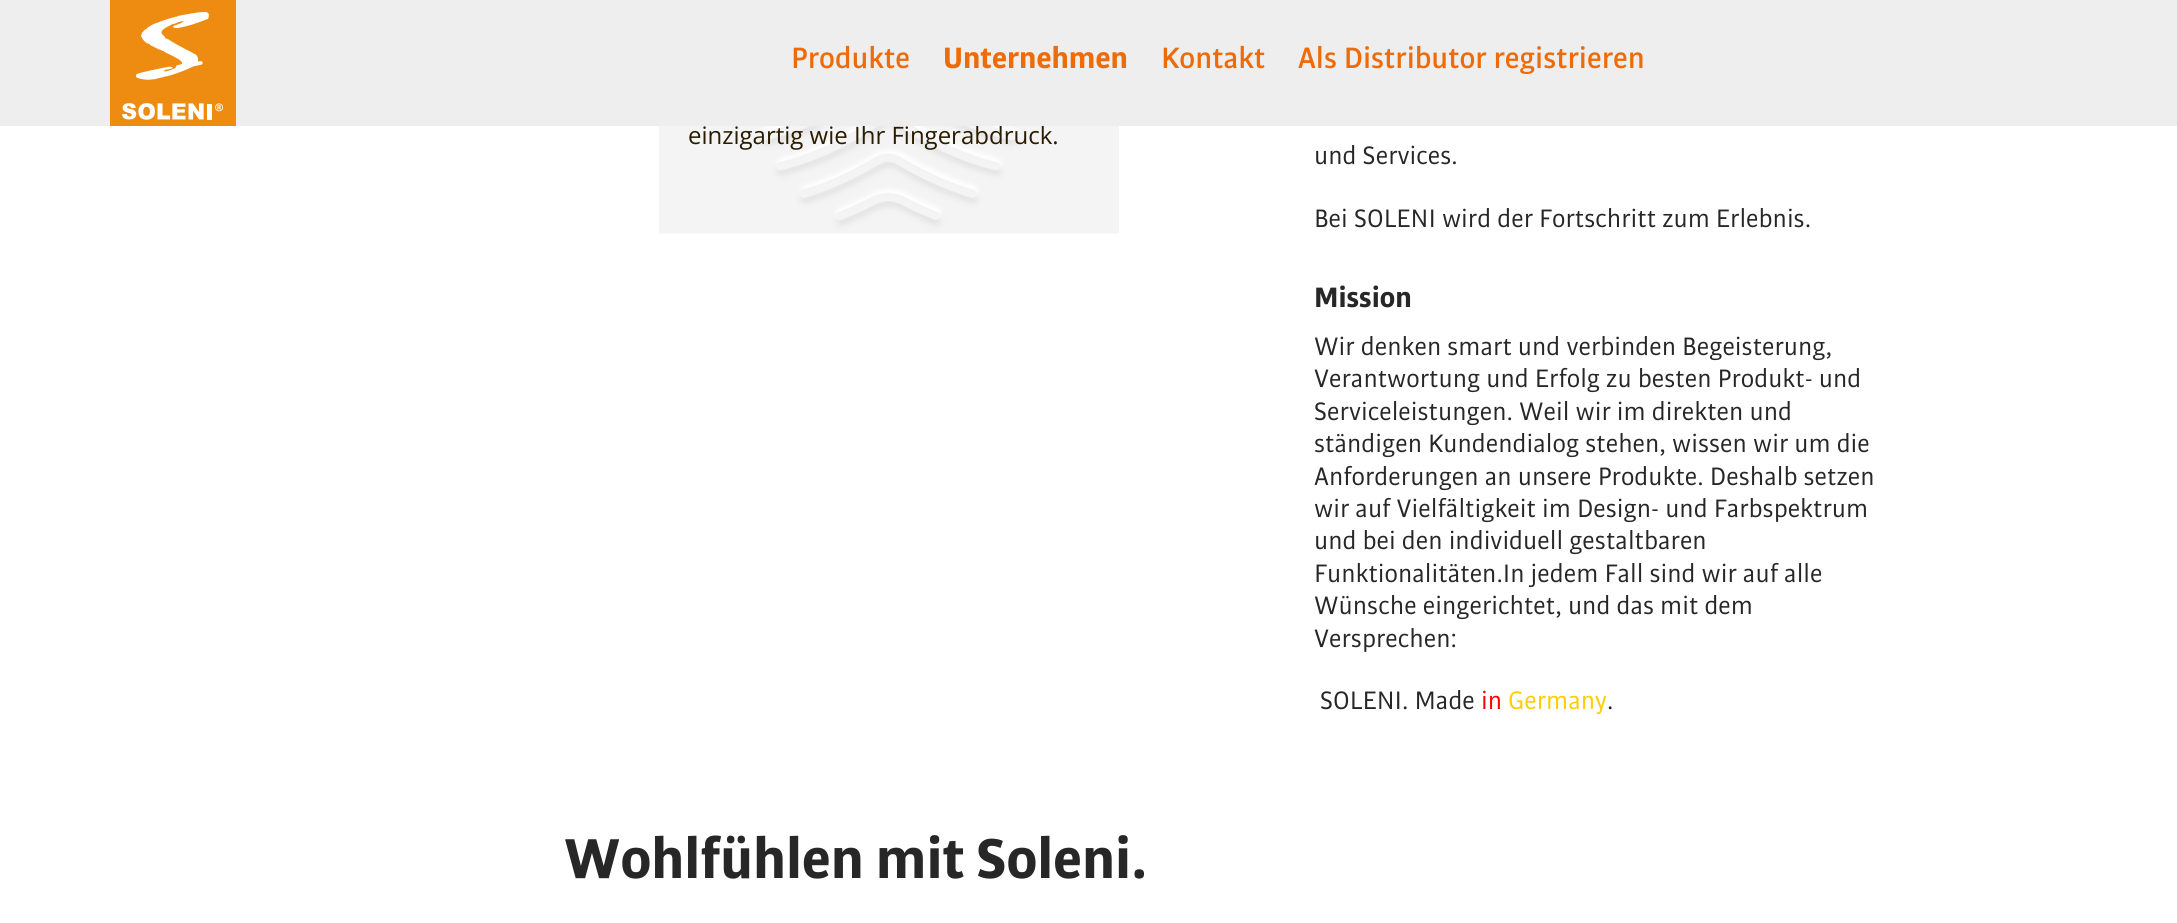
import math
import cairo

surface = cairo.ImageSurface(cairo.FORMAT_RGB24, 2177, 923)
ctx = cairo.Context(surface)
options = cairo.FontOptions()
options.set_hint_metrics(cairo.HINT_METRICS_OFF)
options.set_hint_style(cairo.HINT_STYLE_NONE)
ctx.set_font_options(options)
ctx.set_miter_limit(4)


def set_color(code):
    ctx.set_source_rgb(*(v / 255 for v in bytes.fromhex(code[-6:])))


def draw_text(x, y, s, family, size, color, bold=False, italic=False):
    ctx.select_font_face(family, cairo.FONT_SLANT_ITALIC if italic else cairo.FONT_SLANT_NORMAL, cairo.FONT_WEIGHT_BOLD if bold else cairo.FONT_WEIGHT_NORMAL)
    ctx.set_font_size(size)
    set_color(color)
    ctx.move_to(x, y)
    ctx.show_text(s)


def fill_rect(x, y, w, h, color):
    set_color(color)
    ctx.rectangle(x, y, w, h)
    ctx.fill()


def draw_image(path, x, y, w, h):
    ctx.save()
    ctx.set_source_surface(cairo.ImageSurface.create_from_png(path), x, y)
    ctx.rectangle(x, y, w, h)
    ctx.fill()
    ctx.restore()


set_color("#ffffff")
ctx.paint()
draw_image("assets/img2.png", 659, 126, 460, 108)
draw_text(688, 144, "einzigartig wie Ihr Fingerabdruck.", "Open Sans", 24, "#291c00")
fill_rect(0, 0, 2177, 126, "#eeeeee")
draw_image("assets/img1.png", 110, 0, 126, 126)
draw_text(791, 68, "Produkte", "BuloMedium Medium", 31.5, "#ed6c09")
draw_text(943, 68, "Unternehmen", "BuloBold", 31.5, "#ed6c09", bold=True)
draw_text(1161, 68, "Kontakt", "BuloMedium Medium", 31.5, "#ed6c09")
draw_text(1298, 68, "Als Distributor registrieren", "BuloMedium Medium", 31.5, "#ed6c09")
draw_text(1314, 164, "und Services.", "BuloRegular", 27, "#272727")
draw_text(1314, 227, "Bei SOLENI wird der Fortschritt zum Erlebnis.", "BuloRegular", 27, "#272727")
draw_text(1314, 307, "Mission", "BuloBold", 30, "#272727", bold=True)
draw_text(1314, 355, "Wir denken smart und verbinden Begeisterung,", "BuloRegular", 27, "#272727")
draw_text(1314, 387, "Verantwortung und Erfolg zu besten Produkt- und", "BuloRegular", 27, "#272727")
draw_text(1314, 420, "Serviceleistungen. Weil wir im direkten und", "BuloRegular", 27, "#272727")
draw_text(1314, 452, "ständigen Kundendialog stehen, wissen wir um die", "BuloRegular", 27, "#272727")
draw_text(1314, 485, "Anforderungen an unsere Produkte. Deshalb setzen", "BuloRegular", 27, "#272727")
draw_text(1314, 517, "wir auf Vielfältigkeit im Design- und Farbspektrum", "BuloRegular", 27, "#272727")
draw_text(1314, 549, "und bei den individuell gestaltbaren", "BuloRegular", 27, "#272727")
draw_text(1314, 582, "Funktionalitäten.In jedem Fall sind wir auf alle", "BuloRegular", 27, "#272727")
draw_text(1314, 614, "Wünsche eingerichtet, und das mit dem", "BuloRegular", 27, "#272727")
draw_text(1314, 647, "Versprechen:", "BuloRegular", 27, "#272727")
draw_text(1320, 709, "SOLENI. Made", "BuloRegular", 27, "#272727")
draw_text(1481, 709, "in", "BuloRegular", 27, "#ff0000")
draw_text(1508, 709, "Germany", "BuloRegular", 27, "#ffcc00")
draw_text(1607, 709, ".", "BuloRegular", 27, "#272727")
draw_text(564, 878, "Wohlfühlen mit Soleni.", "BuloBold", 60, "#272727", bold=True)
surface.write_to_png("output.png")
